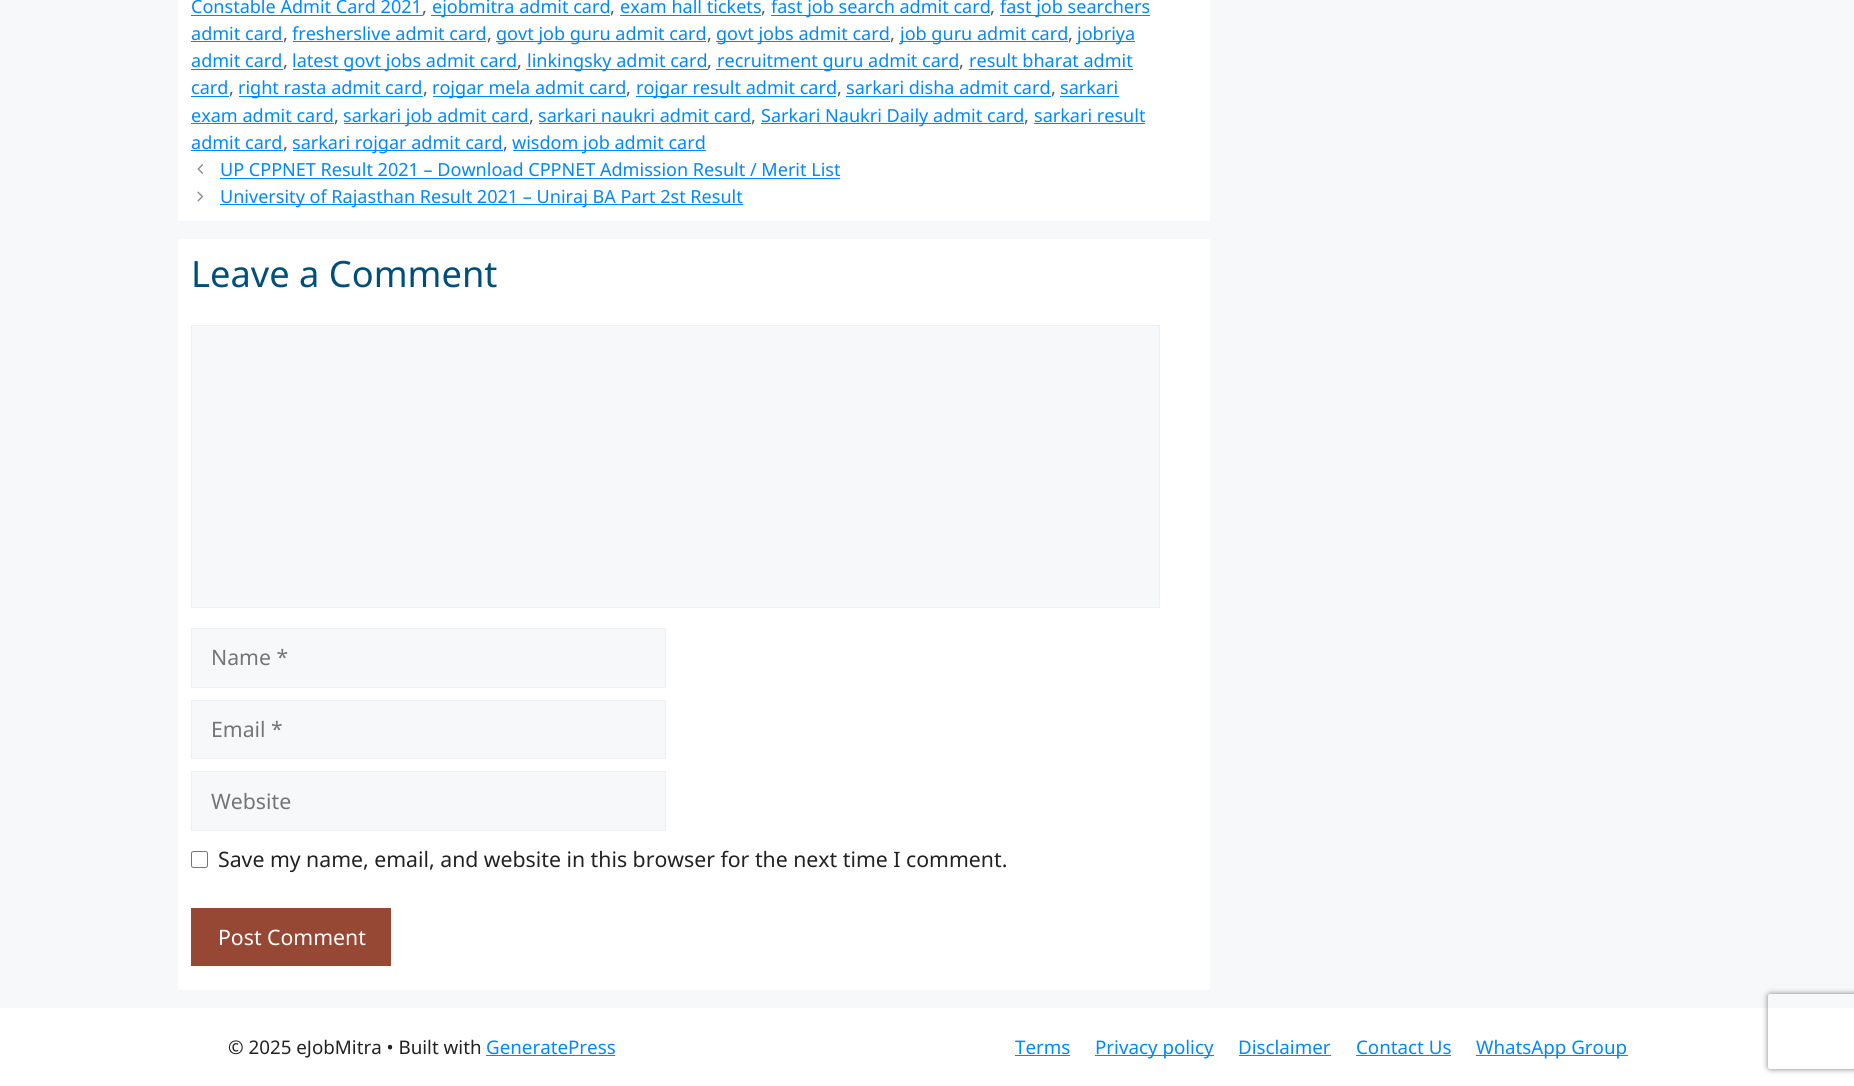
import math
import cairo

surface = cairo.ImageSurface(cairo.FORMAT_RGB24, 1854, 1086)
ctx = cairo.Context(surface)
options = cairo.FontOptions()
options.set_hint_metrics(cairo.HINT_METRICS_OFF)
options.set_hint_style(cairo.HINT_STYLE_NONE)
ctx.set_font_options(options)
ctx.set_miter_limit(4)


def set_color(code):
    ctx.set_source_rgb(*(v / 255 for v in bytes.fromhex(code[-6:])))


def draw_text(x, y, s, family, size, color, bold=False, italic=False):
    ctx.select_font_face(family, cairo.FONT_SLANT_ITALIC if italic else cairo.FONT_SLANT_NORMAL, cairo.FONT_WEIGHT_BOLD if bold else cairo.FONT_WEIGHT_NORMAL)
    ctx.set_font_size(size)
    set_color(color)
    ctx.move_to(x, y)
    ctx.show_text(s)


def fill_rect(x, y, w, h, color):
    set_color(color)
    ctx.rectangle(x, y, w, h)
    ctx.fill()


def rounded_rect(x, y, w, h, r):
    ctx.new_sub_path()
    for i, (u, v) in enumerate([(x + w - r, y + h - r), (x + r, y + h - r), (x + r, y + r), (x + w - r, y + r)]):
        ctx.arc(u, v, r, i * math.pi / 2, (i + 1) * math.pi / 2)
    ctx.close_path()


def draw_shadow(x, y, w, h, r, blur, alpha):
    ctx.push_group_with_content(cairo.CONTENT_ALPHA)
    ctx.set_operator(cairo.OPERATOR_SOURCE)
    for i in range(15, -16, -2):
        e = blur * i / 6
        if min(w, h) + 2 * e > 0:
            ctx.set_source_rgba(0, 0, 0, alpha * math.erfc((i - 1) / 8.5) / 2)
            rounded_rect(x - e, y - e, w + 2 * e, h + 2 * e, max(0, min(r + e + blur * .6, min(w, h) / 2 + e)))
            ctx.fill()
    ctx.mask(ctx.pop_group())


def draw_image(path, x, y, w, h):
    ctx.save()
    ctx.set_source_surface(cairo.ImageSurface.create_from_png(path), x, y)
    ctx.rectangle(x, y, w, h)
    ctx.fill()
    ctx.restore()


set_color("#f7f8f9")
ctx.paint()
fill_rect(178, 0, 1032, 221, "#ffffff")
draw_text(191, 13, "Constable Admit Card 2021", "Noto Sans", 18.05, "#0088ff")
fill_rect(191, 15, 232, 1, "#0088ff")
draw_text(422, 13, ",", "Noto Sans", 18.05, "#575760")
fill_rect(431, 15, 179, 1, "#0088ff")
draw_text(432, 13, "ejobmitra admit card", "Noto Sans", 18.05, "#0088ff")
draw_text(610, 13, ",", "Noto Sans", 18.05, "#575760")
draw_text(620, 13, "exam hall tickets", "Noto Sans", 18.05, "#0088ff")
fill_rect(620, 15, 141, 1, "#0088ff")
draw_text(761, 13, ",", "Noto Sans", 18.05, "#575760")
fill_rect(771, 15, 219, 1, "#0088ff")
draw_text(771, 13, "fast job search admit card", "Noto Sans", 18.05, "#0088ff")
draw_text(990, 13, ",", "Noto Sans", 18.05, "#575760")
fill_rect(1000, 15, 150, 1, "#0088ff")
draw_text(1000, 13, "fast job searchers", "Noto Sans", 18.05, "#0088ff")
draw_text(191, 40, "admit card", "Noto Sans", 18.05, "#0088ff")
fill_rect(191, 41, 92, 1, "#0088ff")
draw_text(283, 40, ",", "Noto Sans", 18.05, "#575760")
draw_text(292, 40, "fresherslive admit card", "Noto Sans", 18.05, "#0088ff")
fill_rect(293, 41, 193, 1, "#0088ff")
draw_text(487, 40, ",", "Noto Sans", 18.05, "#575760")
fill_rect(496, 41, 210, 1, "#0088ff")
draw_text(496, 40, "govt job guru admit card", "Noto Sans", 18.05, "#0088ff")
draw_text(707, 40, ",", "Noto Sans", 18.05, "#575760")
fill_rect(716, 41, 174, 1, "#0088ff")
draw_text(716, 40, "govt jobs admit card", "Noto Sans", 18.05, "#0088ff")
draw_text(890, 40, ",", "Noto Sans", 18.05, "#575760")
fill_rect(900, 41, 168, 1, "#0088ff")
draw_text(900, 40, "job guru admit card", "Noto Sans", 18.05, "#0088ff")
draw_text(1068, 40, ",", "Noto Sans", 18.05, "#575760")
fill_rect(1078, 41, 57, 1, "#0088ff")
draw_text(1077, 40, "jobriya", "Noto Sans", 18.05, "#0088ff")
draw_text(191, 67, "admit card", "Noto Sans", 18.05, "#0088ff")
fill_rect(191, 69, 92, 1, "#0088ff")
draw_text(283, 67, ",", "Noto Sans", 18.05, "#575760")
fill_rect(293, 69, 225, 1, "#0088ff")
draw_text(292, 67, "latest govt jobs admit card", "Noto Sans", 18.05, "#0088ff")
draw_text(517, 67, ",", "Noto Sans", 18.05, "#575760")
fill_rect(526, 69, 182, 1, "#0088ff")
draw_text(527, 67, "linkingsky admit card", "Noto Sans", 18.05, "#0088ff")
draw_text(707, 67, ",", "Noto Sans", 18.05, "#575760")
fill_rect(716, 69, 243, 1, "#0088ff")
draw_text(717, 67, "recruitment guru admit card", "Noto Sans", 18.05, "#0088ff")
draw_text(959, 67, ",", "Noto Sans", 18.05, "#575760")
draw_text(969, 67, "result bharat admit", "Noto Sans", 18.05, "#0088ff")
fill_rect(969, 69, 164, 1, "#0088ff")
draw_text(191, 94, "card", "Noto Sans", 18.05, "#0088ff")
fill_rect(191, 96, 38, 1, "#0088ff")
draw_text(229, 94, ",", "Noto Sans", 18.05, "#575760")
fill_rect(239, 96, 184, 1, "#0088ff")
draw_text(238, 94, "right rasta admit card", "Noto Sans", 18.05, "#0088ff")
draw_text(423, 94, ",", "Noto Sans", 18.05, "#575760")
fill_rect(433, 96, 193, 1, "#0088ff")
draw_text(432, 94, "rojgar mela admit card", "Noto Sans", 18.05, "#0088ff")
draw_text(626, 94, ",", "Noto Sans", 18.05, "#575760")
fill_rect(636, 96, 200, 1, "#0088ff")
draw_text(636, 94, "rojgar result admit card", "Noto Sans", 18.05, "#0088ff")
draw_text(837, 94, ",", "Noto Sans", 18.05, "#575760")
draw_text(846, 94, "sarkari disha admit card", "Noto Sans", 18.05, "#0088ff")
fill_rect(846, 96, 205, 1, "#0088ff")
draw_text(1051, 94, ",", "Noto Sans", 18.05, "#575760")
draw_text(1060, 94, "sarkari", "Noto Sans", 18.05, "#0088ff")
fill_rect(1060, 96, 59, 1, "#0088ff")
draw_text(191, 122, "exam admit card", "Noto Sans", 18.05, "#0088ff")
fill_rect(191, 123, 143, 1, "#0088ff")
draw_text(334, 122, ",", "Noto Sans", 18.05, "#575760")
fill_rect(344, 123, 185, 1, "#0088ff")
draw_text(343, 122, "sarkari job admit card", "Noto Sans", 18.05, "#0088ff")
draw_text(529, 122, ",", "Noto Sans", 18.05, "#575760")
draw_text(538, 122, "sarkari naukri admit card", "Noto Sans", 18.05, "#0088ff")
fill_rect(539, 123, 212, 1, "#0088ff")
draw_text(751, 122, ",", "Noto Sans", 18.05, "#575760")
fill_rect(761, 123, 263, 1, "#0088ff")
draw_text(761, 122, "Sarkari Naukri Daily admit card", "Noto Sans", 18.05, "#0088ff")
draw_text(1024, 122, ",", "Noto Sans", 18.05, "#575760")
draw_text(1034, 122, "sarkari result", "Noto Sans", 18.05, "#0088ff")
fill_rect(1034, 123, 111, 1, "#0088ff")
draw_text(191, 149, "admit card", "Noto Sans", 18.05, "#0088ff")
fill_rect(191, 150, 92, 1, "#0088ff")
draw_text(283, 149, ",", "Noto Sans", 18.05, "#575760")
fill_rect(293, 150, 210, 1, "#0088ff")
draw_text(292, 149, "sarkari rojgar admit card", "Noto Sans", 18.05, "#0088ff")
draw_text(503, 149, ",", "Noto Sans", 18.05, "#575760")
fill_rect(513, 150, 193, 1, "#0088ff")
draw_text(512, 149, "wisdom job admit card", "Noto Sans", 18.05, "#0088ff")
draw_image("assets/img1.png", 197, 164, 7, 10)
draw_text(220, 176, "UP CPPNET Result 2021 – Download CPPNET Admission Result / Merit List", "Noto Sans", 18.05, "#0088ff")
fill_rect(220, 178, 620, 1, "#0088ff")
draw_image("assets/img2.png", 197, 191, 7, 11)
fill_rect(220, 204, 523, 1, "#0088ff")
draw_text(220, 203, "University of Rajasthan Result 2021 – Uniraj BA Part 2st Result", "Noto Sans", 18.05, "#0088ff")
fill_rect(178, 239, 1032, 751, "#ffffff")
draw_text(191, 287, "Leave a Comment", "Noto Sans", 36.25, "#004f7a")
set_color("#f7f8f9")
ctx.rectangle(191.5, 325.5, 968, 282)
ctx.fill_preserve()
set_color("#f0f0f0")
ctx.set_line_width(1)
ctx.stroke()
set_color("#f7f8f9")
ctx.rectangle(191.5, 628.5, 474, 59)
ctx.fill_preserve()
set_color("#f0f0f0")
ctx.stroke()
draw_text(211, 665, "Name *", "Noto Sans", 21.25, "#757575")
set_color("#f7f8f9")
ctx.rectangle(191.5, 700.5, 474, 58)
ctx.fill_preserve()
set_color("#f0f0f0")
ctx.stroke()
draw_text(211, 737, "Email *", "Noto Sans", 21.25, "#757575")
set_color("#f7f8f9")
ctx.rectangle(191.5, 771.5, 474, 59)
ctx.fill_preserve()
set_color("#f0f0f0")
ctx.stroke()
draw_text(211, 809, "Website", "Noto Sans", 21.25, "#757575")
rounded_rect(191.5, 851.5, 16, 16, 2)
set_color("#767676")
ctx.stroke()
draw_text(218, 867, "Save my name, email, and website in this browser for the next time I comment.", "Noto Sans", 21.25, "#222222")
fill_rect(191, 908, 200, 58, "#964834")
draw_text(218, 945, "Post Comment", "Noto Sans", 21.25, "#ffffff")
fill_rect(0, 1008, 1854, 78, "#ffffff")
draw_text(228, 1054, "© 2025 eJobMitra • Built with", "Noto Sans", 18.75, "#222222")
draw_text(486, 1054, "GeneratePress", "Noto Sans", 18.75, "#0088ff")
fill_rect(486, 1055, 129, 1, "#0088ff")
draw_text(1015, 1054, "Terms", "Noto Sans", 18.75, "#0088ff")
fill_rect(1015, 1055, 55, 1, "#0088ff")
fill_rect(1095, 1055, 119, 1, "#0088ff")
draw_text(1095, 1054, "Privacy policy", "Noto Sans", 18.75, "#0088ff")
draw_text(1238, 1054, "Disclaimer", "Noto Sans", 18.75, "#0088ff")
fill_rect(1239, 1055, 92, 1, "#0088ff")
draw_text(1356, 1054, "Contact Us", "Noto Sans", 18.75, "#0088ff")
fill_rect(1356, 1055, 95, 1, "#0088ff")
fill_rect(1476, 1055, 152, 1, "#0088ff")
draw_text(1476, 1054, "WhatsApp Group", "Noto Sans", 18.75, "#0088ff")
ctx.save()
ctx.set_fill_rule(cairo.FILL_RULE_EVEN_ODD)
ctx.new_path()
ctx.move_to(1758, 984)
ctx.line_to(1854, 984)
ctx.line_to(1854, 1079)
ctx.line_to(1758, 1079)
ctx.close_path()
ctx.move_to(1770.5, 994)
ctx.line_to(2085.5, 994)
ctx.curve_to(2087, 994, 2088, 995, 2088, 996.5)
ctx.line_to(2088, 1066.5)
ctx.curve_to(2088, 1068, 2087, 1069, 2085.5, 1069)
ctx.line_to(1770.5, 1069)
ctx.curve_to(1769, 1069, 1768, 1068, 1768, 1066.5)
ctx.line_to(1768, 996.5)
ctx.curve_to(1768, 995, 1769, 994, 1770.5, 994)
ctx.close_path()
ctx.clip()
set_color("#808080")
draw_shadow(1768, 994, 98, 75, 2.5, 3, 1)
ctx.restore()
surface.write_to_png("output.png")
